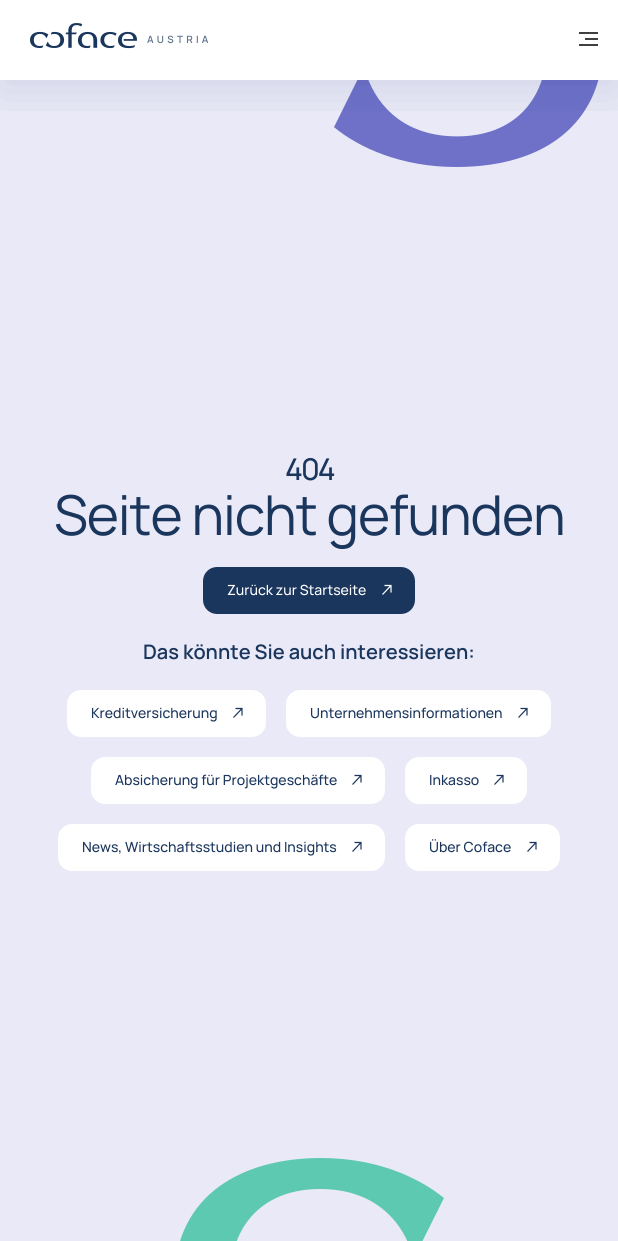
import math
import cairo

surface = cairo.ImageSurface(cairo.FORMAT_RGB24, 618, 1241)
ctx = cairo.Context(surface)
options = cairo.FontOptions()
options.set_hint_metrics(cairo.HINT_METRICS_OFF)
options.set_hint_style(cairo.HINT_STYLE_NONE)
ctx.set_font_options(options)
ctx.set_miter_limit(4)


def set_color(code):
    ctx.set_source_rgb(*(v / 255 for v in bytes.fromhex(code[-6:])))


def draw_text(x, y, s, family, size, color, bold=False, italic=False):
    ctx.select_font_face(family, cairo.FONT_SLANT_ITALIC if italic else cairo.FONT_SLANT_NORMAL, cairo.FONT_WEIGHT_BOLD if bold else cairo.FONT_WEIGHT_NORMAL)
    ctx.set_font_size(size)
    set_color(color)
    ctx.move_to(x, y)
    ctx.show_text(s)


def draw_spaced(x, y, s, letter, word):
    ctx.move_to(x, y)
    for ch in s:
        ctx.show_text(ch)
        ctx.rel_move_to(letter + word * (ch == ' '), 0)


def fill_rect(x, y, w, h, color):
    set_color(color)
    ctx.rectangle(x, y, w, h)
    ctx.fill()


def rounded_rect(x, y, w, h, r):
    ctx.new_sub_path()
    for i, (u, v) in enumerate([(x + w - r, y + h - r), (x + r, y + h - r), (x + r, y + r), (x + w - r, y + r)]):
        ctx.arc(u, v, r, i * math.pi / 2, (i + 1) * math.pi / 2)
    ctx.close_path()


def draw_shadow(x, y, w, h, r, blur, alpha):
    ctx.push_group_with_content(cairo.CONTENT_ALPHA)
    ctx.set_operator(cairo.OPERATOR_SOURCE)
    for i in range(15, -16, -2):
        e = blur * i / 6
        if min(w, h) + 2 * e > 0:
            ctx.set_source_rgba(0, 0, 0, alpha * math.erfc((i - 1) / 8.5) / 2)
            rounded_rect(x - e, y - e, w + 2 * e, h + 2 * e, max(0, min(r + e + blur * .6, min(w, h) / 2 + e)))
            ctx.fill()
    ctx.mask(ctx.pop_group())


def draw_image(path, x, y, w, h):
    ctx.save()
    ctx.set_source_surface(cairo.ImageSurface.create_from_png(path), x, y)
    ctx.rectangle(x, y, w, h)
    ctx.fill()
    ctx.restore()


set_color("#ffffff")
ctx.paint()
fill_rect(0, 80, 618, 1161, "#e9e9f7")
draw_image("assets/img2.png", 334, 80, 265, 87)
ctx.save()
ctx.rectangle(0, 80, 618, 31)
ctx.clip()
set_color("#04214e")
draw_shadow(0, 10, 618, 80, 0, 25, 0.1)
ctx.restore()
draw_image("assets/img1.png", 30, 23, 107, 26)
ctx.select_font_face("Manrope SemiBold")
ctx.set_font_size(10)
set_color("#5f728e")
draw_spaced(147, 43, "AUSTRIA", 3.25, 0)
fill_rect(579, 32, 19, 2, "#404040")
fill_rect(585, 38, 13, 2, "#404040")
fill_rect(579, 44, 19, 2, "#404040")
ctx.select_font_face("Manrope Medium")
ctx.set_font_size(30)
set_color("#1b365d")
draw_spaced(285, 480, "404", -2, 0)
ctx.select_font_face("Manrope")
ctx.set_font_size(55)
draw_spaced(54, 535, "Seite nicht gefunden", -1.1, 0)
rounded_rect(203, 567, 212, 47, 14)
ctx.fill()
draw_text(227, 595, "Zurück zur Startseite", "Manrope Medium", 14, "#ffffff")
ctx.new_path()
ctx.move_to(391, 592.5)
ctx.line_to(391, 585.5)
ctx.line_to(384.5, 585.5)
ctx.move_to(391, 585.5)
ctx.line_to(382.5, 594.5)
ctx.set_line_width(1.2)
ctx.stroke()
draw_text(143, 659, "Das könnte Sie auch interessieren:", "Manrope SemiBold", 20, "#1b365d")
set_color("#ffffff")
rounded_rect(67, 690, 199, 47, 14)
ctx.fill()
draw_text(91, 718, "Kreditversicherung", "Manrope Medium", 14, "#1b365d")
ctx.new_path()
ctx.move_to(242, 715.5)
ctx.line_to(242, 708.5)
ctx.line_to(235.5, 708.5)
ctx.move_to(242, 708.5)
ctx.line_to(233.5, 717.5)
ctx.stroke()
set_color("#ffffff")
rounded_rect(286, 690, 265, 47, 14)
ctx.fill()
draw_text(310, 718, "Unternehmensinformationen", "Manrope Medium", 14, "#1b365d")
ctx.new_path()
ctx.move_to(527, 715.5)
ctx.line_to(527, 708.5)
ctx.line_to(520.5, 708.5)
ctx.move_to(527, 708.5)
ctx.line_to(518.5, 717.5)
ctx.stroke()
set_color("#ffffff")
rounded_rect(91, 757, 294, 47, 14)
ctx.fill()
draw_text(115, 785, "Absicherung für Projektgeschäfte", "Manrope Medium", 14, "#1b365d")
ctx.new_path()
ctx.move_to(361, 782.5)
ctx.line_to(361, 775.5)
ctx.line_to(354.5, 775.5)
ctx.move_to(361, 775.5)
ctx.line_to(352.5, 784.5)
ctx.stroke()
set_color("#ffffff")
rounded_rect(405, 757, 122, 47, 14)
ctx.fill()
draw_text(429, 785, "Inkasso", "Manrope Medium", 14, "#1b365d")
ctx.new_path()
ctx.move_to(503, 782.5)
ctx.line_to(503, 775.5)
ctx.line_to(496.5, 775.5)
ctx.move_to(503, 775.5)
ctx.line_to(494.5, 784.5)
ctx.stroke()
set_color("#ffffff")
rounded_rect(58, 824, 327, 47, 14)
ctx.fill()
draw_text(82, 852, "News, Wirtschaftsstudien und Insights", "Manrope Medium", 14, "#1b365d")
ctx.new_path()
ctx.move_to(361, 849.5)
ctx.line_to(361, 842.5)
ctx.line_to(354.5, 842.5)
ctx.move_to(361, 842.5)
ctx.line_to(352.5, 851.5)
ctx.stroke()
set_color("#ffffff")
rounded_rect(405, 824, 155, 47, 14)
ctx.fill()
draw_text(429, 852, "Über Coface", "Manrope Medium", 14, "#1b365d")
ctx.new_path()
ctx.move_to(536, 849.5)
ctx.line_to(536, 842.5)
ctx.line_to(529.5, 842.5)
ctx.move_to(536, 842.5)
ctx.line_to(527.5, 851.5)
ctx.stroke()
set_color("#5ec9b1")
ctx.new_path()
ctx.move_to(321, 1158)
ctx.curve_to(243, 1158, 175, 1194, 174, 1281)
ctx.curve_to(174, 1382, 269, 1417, 355, 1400)
ctx.line_to(369, 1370)
ctx.curve_to(371, 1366, 368, 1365, 365, 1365)
ctx.curve_to(351, 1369, 338, 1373, 315, 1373)
ctx.curve_to(267, 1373, 230, 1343, 230, 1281)
ctx.curve_to(230, 1223, 265, 1189, 320, 1189)
ctx.curve_to(370, 1189, 399, 1216, 411, 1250)
ctx.curve_to(412, 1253, 416, 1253, 418, 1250)
ctx.line_to(444, 1198)
ctx.curve_to(418, 1177, 376, 1158, 321, 1158)
ctx.close_path()
ctx.fill()
surface.write_to_png("output.png")
